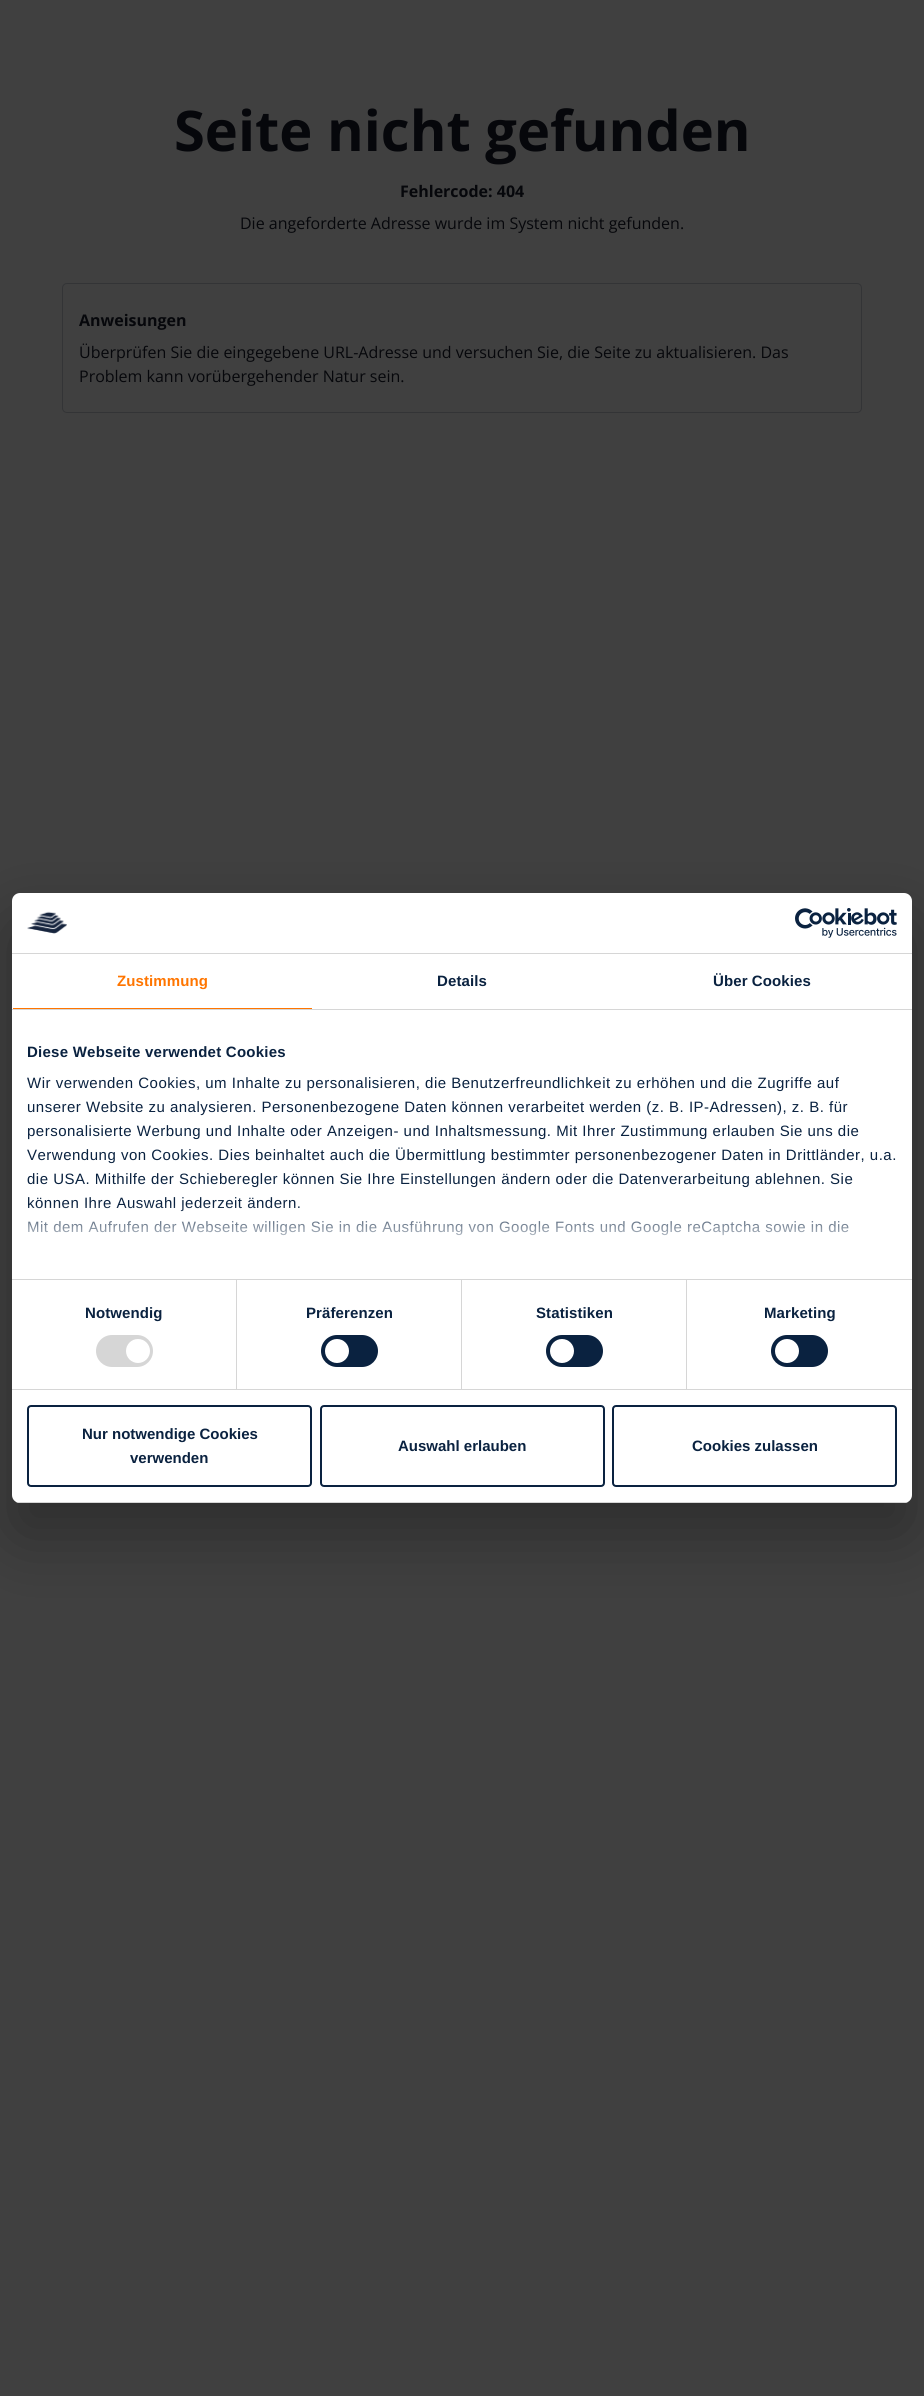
import math
import cairo

surface = cairo.ImageSurface(cairo.FORMAT_RGB24, 924, 2396)
ctx = cairo.Context(surface)
options = cairo.FontOptions()
options.set_hint_metrics(cairo.HINT_METRICS_OFF)
options.set_hint_style(cairo.HINT_STYLE_NONE)
ctx.set_font_options(options)
ctx.set_miter_limit(4)


def set_color(code):
    ctx.set_source_rgb(*(v / 255 for v in bytes.fromhex(code[-6:])))


def draw_text(x, y, s, family, size, color, bold=False, italic=False):
    ctx.select_font_face(family, cairo.FONT_SLANT_ITALIC if italic else cairo.FONT_SLANT_NORMAL, cairo.FONT_WEIGHT_BOLD if bold else cairo.FONT_WEIGHT_NORMAL)
    ctx.set_font_size(size)
    set_color(color)
    ctx.move_to(x, y)
    ctx.show_text(s)


def draw_spaced(x, y, s, letter, word):
    ctx.move_to(x, y)
    for ch in s:
        ctx.show_text(ch)
        ctx.rel_move_to(letter + word * (ch == ' '), 0)


def fill_rect(x, y, w, h, color):
    set_color(color)
    ctx.rectangle(x, y, w, h)
    ctx.fill()


def rounded_rect(x, y, w, h, r):
    ctx.new_sub_path()
    for i, (u, v) in enumerate([(x + w - r, y + h - r), (x + r, y + h - r), (x + r, y + r), (x + w - r, y + r)]):
        ctx.arc(u, v, r, i * math.pi / 2, (i + 1) * math.pi / 2)
    ctx.close_path()


def draw_shadow(x, y, w, h, r, blur, alpha):
    ctx.push_group_with_content(cairo.CONTENT_ALPHA)
    ctx.set_operator(cairo.OPERATOR_SOURCE)
    for i in range(15, -16, -2):
        e = blur * i / 6
        if min(w, h) + 2 * e > 0:
            ctx.set_source_rgba(0, 0, 0, alpha * math.erfc((i - 1) / 8.5) / 2)
            rounded_rect(x - e, y - e, w + 2 * e, h + 2 * e, max(0, min(r + e + blur * .6, min(w, h) / 2 + e)))
            ctx.fill()
    ctx.mask(ctx.pop_group())


def draw_image(path, x, y, w, h):
    ctx.save()
    ctx.set_source_surface(cairo.ImageSurface.create_from_png(path), x, y)
    ctx.rectangle(x, y, w, h)
    ctx.fill()
    ctx.restore()


set_color("#404040")
ctx.paint()
draw_text(174, 151, "Seite nicht gefunden", "Open Sans", 56, "#06070b", bold=True)
draw_text(400, 197, "Fehlercode: 404", "Open Sans", 16, "#06070b", bold=True)
draw_text(240, 229, "Die angeforderte Adresse wurde im System nicht gefunden.", "Open Sans", 16, "#06070b")
rounded_rect(62.5, 283.5, 799, 129, 4.5)
set_color("#333436")
ctx.set_line_width(1)
ctx.stroke()
draw_text(79, 326, "Anweisungen", "Open Sans", 16, "#06070b", bold=True)
draw_text(79, 358, "Überprüfen Sie die eingegebene URL-Adresse und versuchen Sie, die Seite zu aktualisieren. Das", "Open Sans", 16, "#06070b")
draw_text(79, 382, "Problem kann vorübergehender Natur sein.", "Open Sans", 16, "#06070b")
set_color("#000000")
draw_shadow(12, 925, 900, 610, 8, 34, 0.3)
set_color("#ffffff")
rounded_rect(12, 893, 900, 610, 8)
ctx.fill()
fill_rect(12, 953, 900, 1, "#d6d6d6")
draw_image("assets/img1.png", 27, 911, 40, 23)
draw_image("assets/img2.png", 795, 908, 102, 30)
fill_rect(12, 1009, 900, 1, "#d6d6d6")
fill_rect(13, 1008, 299, 1, "#ff7500")
ctx.select_font_face("Liberation Sans", cairo.FONT_SLANT_NORMAL, cairo.FONT_WEIGHT_BOLD)
ctx.set_font_size(15)
draw_spaced(117, 986, "Zustimmung", 0.1, 0)
set_color("#0a2240")
draw_spaced(437, 986, "Details", 0.1, 0)
draw_spaced(713, 986, "Über Cookies", 0.1, 0)
fill_rect(12, 1279, 900, 1, "#d6d6d6")
set_color("#0a2240")
draw_spaced(27, 1057, "Diese Webseite verwendet Cookies", 0.25, 0)
ctx.select_font_face("Liberation Sans")
draw_spaced(27, 1088, "Wir verwenden Cookies, um Inhalte zu personalisieren, die Benutzerfreundlichkeit zu erhöhen und die Zugriffe auf", 0.5, 0)
draw_spaced(27, 1112, "unserer Website zu analysieren. Personenbezogene Daten können verarbeitet werden (z. B. IP-Adressen), z. B. für", 0.5, 0)
draw_spaced(27, 1136, "personalisierte Werbung und Inhalte oder Anzeigen- und Inhaltsmessung. Mit Ihrer Zustimmung erlauben Sie uns die", 0.5, 0)
draw_spaced(27, 1160, "Verwendung von Cookies. Dies beinhaltet auch die Übermittlung bestimmter personenbezogener Daten in Drittländer, u.a.", 0.5, 0)
draw_spaced(27, 1184, "die USA. Mithilfe der Schieberegler können Sie Ihre Einstellungen ändern oder die Datenverarbeitung ablehnen. Sie", 0.5, 0)
draw_spaced(27, 1208, "können Ihre Auswahl jederzeit ändern.", 0.5, 0)
draw_spaced(27, 1232, "Mit dem Aufrufen der Webseite willigen Sie in die Ausführung von Google Fonts und Google reCaptcha sowie in die", 0.5, 0)
gradient = cairo.LinearGradient(456, 1279, 456, 1204)
gradient.add_color_stop_rgba(0, 1, 1, 1, 1)
gradient.add_color_stop_rgba(0.5, 1, 1, 1, 0.8)
gradient.add_color_stop_rgba(1, 1, 1, 1, 0)
ctx.set_source(gradient)
ctx.rectangle(28, 1205, 821, 31)
ctx.fill()
fill_rect(12, 1389, 900, 1, "#d6d6d6")
fill_rect(236, 1280, 1, 109, "#d6d6d6")
ctx.select_font_face("Liberation Sans", cairo.FONT_SLANT_NORMAL, cairo.FONT_WEIGHT_BOLD)
set_color("#0a2240")
draw_spaced(85, 1318, "Notwendig", 0.1, 0)
set_color("#d6d6d6")
rounded_rect(96, 1335, 57, 32, 16)
ctx.fill()
set_color("#ffffff")
ctx.arc(138, 1351, 12, 0, 2 * math.pi)
ctx.fill()
fill_rect(461, 1280, 1, 109, "#d6d6d6")
set_color("#0a2240")
draw_spaced(306, 1318, "Präferenzen", 0.1, 0)
rounded_rect(321, 1335, 57, 32, 16)
ctx.fill()
set_color("#ffffff")
ctx.arc(337, 1351, 12, 0, 2 * math.pi)
ctx.fill()
fill_rect(686, 1280, 1, 109, "#d6d6d6")
set_color("#0a2240")
draw_spaced(536, 1318, "Statistiken", 0.1, 0)
rounded_rect(546, 1335, 57, 32, 16)
ctx.fill()
set_color("#ffffff")
ctx.arc(562, 1351, 12, 0, 2 * math.pi)
ctx.fill()
set_color("#0a2240")
draw_spaced(764, 1318, "Marketing", 0.1, 0)
rounded_rect(771, 1335, 57, 32, 16)
ctx.fill()
set_color("#ffffff")
ctx.arc(787, 1351, 12, 0, 2 * math.pi)
ctx.fill()
ctx.save()
rounded_rect(12, 893, 900, 610, 8)
ctx.clip()
fill_rect(12, 1502, 900, 1, "#d6d6d6")
ctx.restore()
rounded_rect(28, 1406, 283, 80, 3)
set_color("#0a2240")
ctx.set_line_width(2)
ctx.stroke()
draw_text(82, 1439, "Nur notwendige Cookies", "Liberation Sans", 15, "#0a2240", bold=True)
draw_text(130, 1463, "verwenden", "Liberation Sans", 15, "#0a2240", bold=True)
rounded_rect(321, 1406, 283, 80, 3)
ctx.stroke()
draw_text(398, 1451, "Auswahl erlauben", "Liberation Sans", 15, "#0a2240", bold=True)
rounded_rect(613, 1406, 283, 80, 3)
ctx.stroke()
draw_text(692, 1451, "Cookies zulassen", "Liberation Sans", 15, "#0a2240", bold=True)
surface.write_to_png("output.png")
